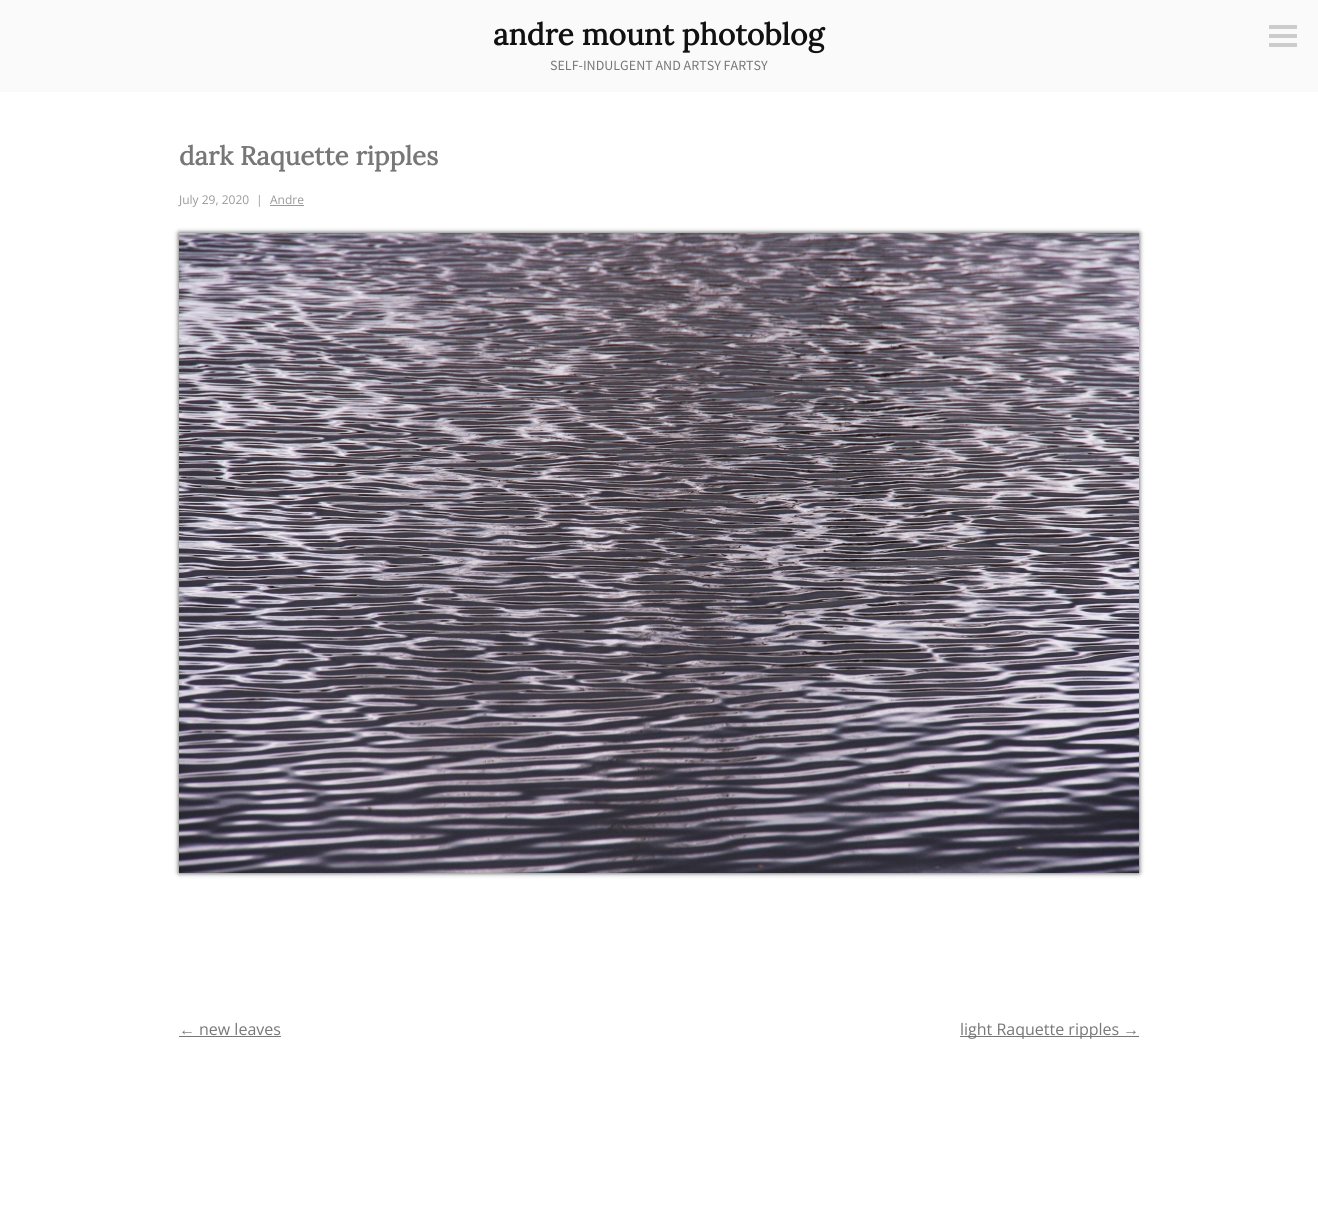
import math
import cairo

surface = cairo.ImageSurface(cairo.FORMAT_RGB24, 1318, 1225)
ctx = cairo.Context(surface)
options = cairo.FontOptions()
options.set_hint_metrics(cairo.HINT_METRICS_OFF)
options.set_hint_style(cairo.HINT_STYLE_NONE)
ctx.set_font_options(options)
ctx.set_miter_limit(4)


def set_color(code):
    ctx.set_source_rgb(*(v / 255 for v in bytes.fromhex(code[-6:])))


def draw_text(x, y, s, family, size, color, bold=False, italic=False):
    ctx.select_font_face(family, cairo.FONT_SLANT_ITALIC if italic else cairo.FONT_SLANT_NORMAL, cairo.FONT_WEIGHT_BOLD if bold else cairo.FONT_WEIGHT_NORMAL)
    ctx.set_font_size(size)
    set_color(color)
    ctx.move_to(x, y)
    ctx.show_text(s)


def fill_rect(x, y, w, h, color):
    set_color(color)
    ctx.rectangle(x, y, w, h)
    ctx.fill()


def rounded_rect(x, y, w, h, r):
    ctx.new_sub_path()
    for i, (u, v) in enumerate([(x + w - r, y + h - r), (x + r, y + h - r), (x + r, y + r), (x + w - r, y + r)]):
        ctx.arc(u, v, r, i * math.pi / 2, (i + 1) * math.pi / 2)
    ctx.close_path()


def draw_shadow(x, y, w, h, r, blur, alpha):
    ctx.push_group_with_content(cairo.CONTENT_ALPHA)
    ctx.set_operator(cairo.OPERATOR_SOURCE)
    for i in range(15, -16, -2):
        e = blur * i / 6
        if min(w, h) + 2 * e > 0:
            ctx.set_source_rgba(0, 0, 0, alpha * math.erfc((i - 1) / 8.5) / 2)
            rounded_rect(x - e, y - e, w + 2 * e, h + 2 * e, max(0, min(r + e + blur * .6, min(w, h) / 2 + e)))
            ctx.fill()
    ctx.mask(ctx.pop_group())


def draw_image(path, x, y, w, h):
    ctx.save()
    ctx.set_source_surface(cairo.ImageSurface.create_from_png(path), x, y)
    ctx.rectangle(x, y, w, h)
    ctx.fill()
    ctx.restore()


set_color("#ffffff")
ctx.paint()
fill_rect(0, 0, 1318, 92, "#fafafa")
draw_text(493, 45, "andre mount photoblog", "Lora", 30, "#111111", bold=True)
draw_text(550, 70, "SELF-INDULGENT AND ARTSY FARTSY", "Source Sans Pro", 14, "#777777")
fill_rect(1269, 25, 28, 4, "#cccccc")
fill_rect(1269, 34, 28, 4, "#cccccc")
fill_rect(1269, 43, 28, 4, "#cccccc")
draw_text(179, 165, "dark Raquette ripples", "Lora", 26, "#777777", bold=True)
draw_text(179, 204, "July 29, 2020", "Open Sans", 12, "#999999")
draw_text(256, 204, "|", "Open Sans", 12, "#999999")
draw_text(270, 204, "Andre", "Open Sans", 12, "#999999")
fill_rect(270, 205, 34, 1, "#999999")
set_color("#000000")
draw_shadow(179, 233, 960, 640, 0, 2.5, 0.75)
draw_image("assets/img1.png", 179, 233, 960, 640)
draw_text(179, 1035, "←", "Liberation Sans", 16, "#777777")
fill_rect(179, 1036, 102, 1, "#777777")
draw_text(199, 1035, "new leaves", "Open Sans", 16, "#777777")
fill_rect(960, 1036, 179, 1, "#777777")
draw_text(960, 1035, "light Raquette ripples", "Open Sans", 16, "#777777")
draw_text(1123, 1035, "→", "Liberation Sans", 16, "#777777")
surface.write_to_png("output.png")
